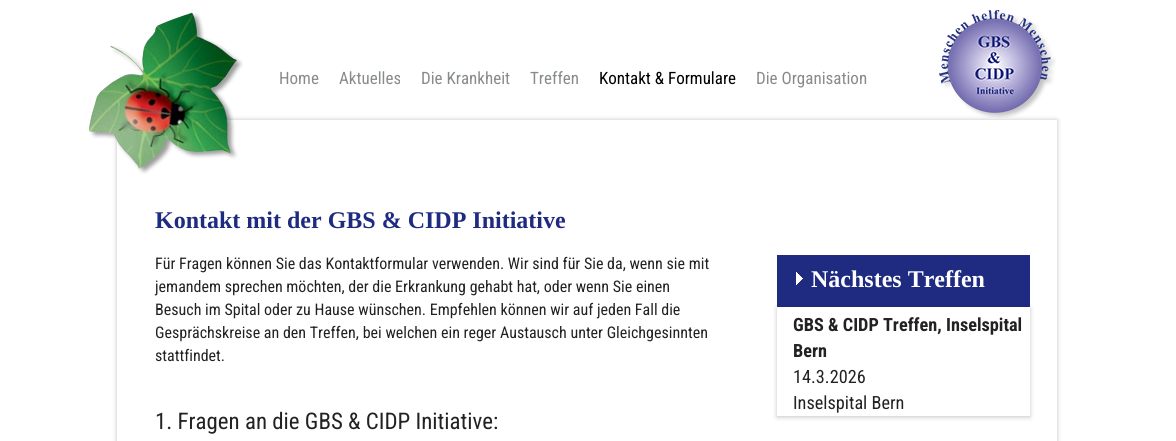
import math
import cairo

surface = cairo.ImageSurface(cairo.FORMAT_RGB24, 1176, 441)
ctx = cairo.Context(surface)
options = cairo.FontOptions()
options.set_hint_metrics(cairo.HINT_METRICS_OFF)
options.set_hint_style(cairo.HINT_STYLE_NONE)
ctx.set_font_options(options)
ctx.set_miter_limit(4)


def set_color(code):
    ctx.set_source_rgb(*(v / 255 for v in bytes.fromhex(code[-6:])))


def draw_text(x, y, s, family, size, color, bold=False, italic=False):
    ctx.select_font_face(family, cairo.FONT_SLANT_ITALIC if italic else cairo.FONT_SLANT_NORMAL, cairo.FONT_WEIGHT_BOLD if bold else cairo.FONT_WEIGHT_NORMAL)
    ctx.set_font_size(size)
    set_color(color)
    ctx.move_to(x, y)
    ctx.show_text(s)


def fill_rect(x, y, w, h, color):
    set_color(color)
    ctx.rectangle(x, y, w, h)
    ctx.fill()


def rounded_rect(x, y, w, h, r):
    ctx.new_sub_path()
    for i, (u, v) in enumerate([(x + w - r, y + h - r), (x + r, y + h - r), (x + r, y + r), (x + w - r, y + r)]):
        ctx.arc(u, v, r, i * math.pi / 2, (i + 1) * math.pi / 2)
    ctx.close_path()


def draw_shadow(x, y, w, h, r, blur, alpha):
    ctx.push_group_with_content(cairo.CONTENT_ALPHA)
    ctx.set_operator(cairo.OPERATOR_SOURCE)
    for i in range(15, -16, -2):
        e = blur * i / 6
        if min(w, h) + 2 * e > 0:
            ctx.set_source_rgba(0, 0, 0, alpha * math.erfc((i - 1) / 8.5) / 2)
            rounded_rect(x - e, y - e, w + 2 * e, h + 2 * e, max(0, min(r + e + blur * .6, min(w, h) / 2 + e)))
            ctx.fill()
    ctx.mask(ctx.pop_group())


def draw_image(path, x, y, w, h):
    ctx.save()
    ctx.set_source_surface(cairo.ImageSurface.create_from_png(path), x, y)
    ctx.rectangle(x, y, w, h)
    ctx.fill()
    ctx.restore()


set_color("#ffffff")
ctx.paint()
ctx.save()
ctx.set_fill_rule(cairo.FILL_RULE_EVEN_ODD)
ctx.new_path()
ctx.move_to(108, 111)
ctx.line_to(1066, 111)
ctx.line_to(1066, 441)
ctx.line_to(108, 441)
ctx.close_path()
ctx.move_to(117, 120)
ctx.line_to(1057, 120)
ctx.line_to(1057, 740)
ctx.line_to(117, 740)
ctx.close_path()
ctx.clip()
set_color("#000000")
draw_shadow(117, 120, 940, 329, 0, 2.5, 0.24)
ctx.restore()
draw_image("assets/img1.png", 89, 12, 154, 162)
draw_text(279, 84, "Home", "Roboto Condensed", 17, "#888b8c")
draw_text(339, 84, "Aktuelles", "Roboto Condensed", 17, "#888b8c")
draw_text(421, 84, "Die Krankheit", "Roboto Condensed", 17, "#888b8c")
draw_text(530, 84, "Treffen", "Roboto Condensed", 17, "#888b8c")
draw_text(599, 84, "Kontakt & Formulare", "Roboto Condensed", 17, "#000000")
draw_text(756, 84, "Die Organisation", "Roboto Condensed", 17, "#888b8c")
draw_image("assets/img2.png", 939, 10, 117, 108)
draw_text(155, 228, "Kontakt mit der GBS & CIDP Initiative", "Liberation Serif", 24, "#1e2b81", bold=True)
draw_text(155, 269, "Für Fragen können Sie das Kontaktformular verwenden. Wir sind für Sie da, wenn sie mit", "Roboto Condensed", 16, "#222222")
draw_text(155, 292, "jemandem sprechen möchten, der die Erkrankung gehabt hat, oder wenn Sie einen", "Roboto Condensed", 16, "#222222")
draw_text(155, 315, "Besuch im Spital oder zu Hause wünschen. Empfehlen können wir auf jeden Fall die", "Roboto Condensed", 16, "#222222")
draw_text(155, 338, "Gesprächskreise an den Treffen, bei welchen ein reger Austausch unter Gleichgesinnten", "Roboto Condensed", 16, "#222222")
draw_text(155, 361, "stattfindet.", "Roboto Condensed", 16, "#222222")
draw_text(155, 429, "1. Fragen an die GBS & CIDP Initiative:", "Roboto Condensed", 22.9, "#222222")
fill_rect(777, 255, 253, 52, "#1e2b81")
draw_image("assets/img3.png", 796, 272, 7, 13)
draw_text(811, 287, "Nächstes Treffen", "Liberation Serif", 24, "#ffffff", bold=True)
ctx.save()
ctx.set_fill_rule(cairo.FILL_RULE_EVEN_ODD)
ctx.new_path()
ctx.move_to(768, 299)
ctx.line_to(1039, 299)
ctx.line_to(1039, 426)
ctx.line_to(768, 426)
ctx.close_path()
ctx.move_to(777, 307)
ctx.line_to(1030, 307)
ctx.line_to(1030, 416)
ctx.line_to(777, 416)
ctx.close_path()
ctx.clip()
set_color("#000000")
draw_shadow(777, 308, 253, 109, 0, 2.5, 0.23)
ctx.restore()
draw_text(793, 331, "GBS & CIDP Treffen, Inselspital", "Roboto Condensed", 18.25, "#222222", bold=True)
draw_text(793, 357, "Bern", "Roboto Condensed", 18.25, "#222222", bold=True)
draw_text(793, 383, "14.3.2026", "Roboto Condensed", 18.25, "#222222")
draw_text(793, 409, "Inselspital Bern", "Roboto Condensed", 18.25, "#222222")
surface.write_to_png("output.png")
